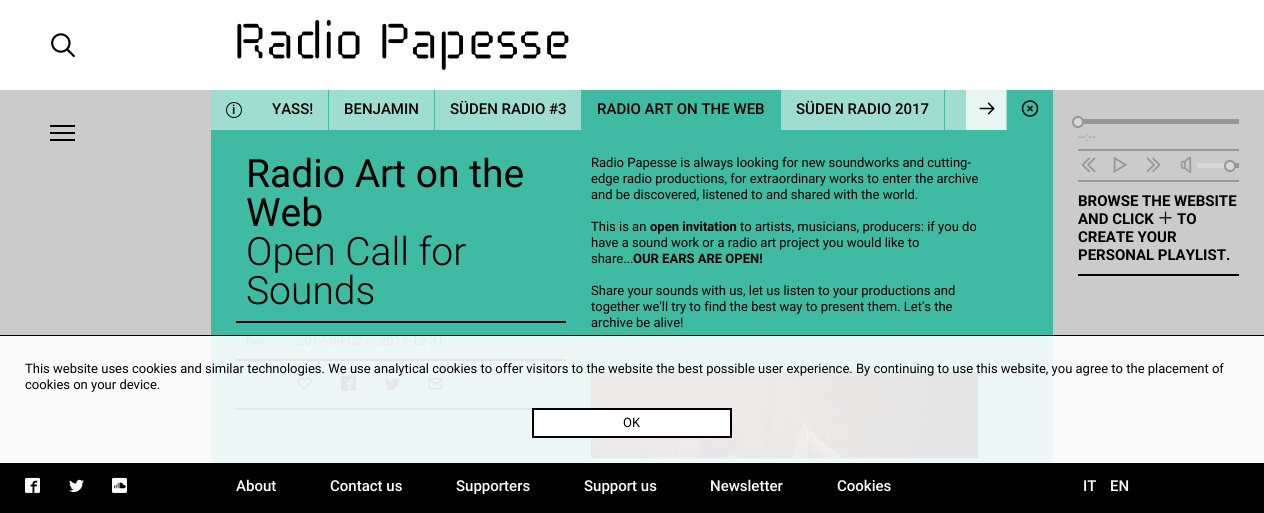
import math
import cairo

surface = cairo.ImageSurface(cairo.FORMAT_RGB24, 1264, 513)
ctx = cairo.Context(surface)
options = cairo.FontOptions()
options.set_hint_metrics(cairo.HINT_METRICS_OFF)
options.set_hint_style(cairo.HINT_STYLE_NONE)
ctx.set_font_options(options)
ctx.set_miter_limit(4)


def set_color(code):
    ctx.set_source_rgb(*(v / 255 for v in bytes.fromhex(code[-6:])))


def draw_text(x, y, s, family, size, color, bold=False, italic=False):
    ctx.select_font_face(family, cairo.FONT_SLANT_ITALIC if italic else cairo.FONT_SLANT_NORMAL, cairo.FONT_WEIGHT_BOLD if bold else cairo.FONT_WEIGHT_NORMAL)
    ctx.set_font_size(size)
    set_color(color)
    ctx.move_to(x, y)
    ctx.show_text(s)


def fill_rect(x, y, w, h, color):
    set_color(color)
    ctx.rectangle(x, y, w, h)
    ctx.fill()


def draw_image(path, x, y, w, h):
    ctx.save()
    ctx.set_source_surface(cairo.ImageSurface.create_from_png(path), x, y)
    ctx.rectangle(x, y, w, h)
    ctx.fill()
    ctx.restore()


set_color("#ffffff")
ctx.paint()
draw_image("assets/img1.png", 51, 33, 24, 25)
draw_image("assets/img2.png", 237, 20, 332, 50)
fill_rect(0, 90, 211, 245, "#cbcbcb")
fill_rect(0, 336, 211, 127, "#fafafa")
fill_rect(50, 125, 25, 2, "#000000")
fill_rect(50, 132, 25, 2, "#000000")
fill_rect(50, 139, 25, 2, "#000000")
fill_rect(211, 130, 842, 205, "#3fbba3")
fill_rect(211, 336, 842, 127, "#ecf8f6")
fill_rect(211, 90, 796, 40, "#9fddd1")
ctx.arc(234, 110, 7.5, 0, 2 * math.pi)
set_color("#000000")
ctx.set_line_width(1)
ctx.stroke()
draw_text(232, 114, "i", "Roboto Medium", 13, "#000000")
draw_text(272, 114, "YASS!", "Roboto Medium", 15, "#000000")
fill_rect(328, 90, 1, 40, "#3fbba3")
draw_text(344, 114, "BENJAMIN", "Roboto Medium", 15, "#000000")
fill_rect(434, 90, 1, 40, "#3fbba3")
draw_text(450, 114, "SÜDEN RADIO #3", "Roboto Medium", 15, "#000000")
fill_rect(581, 90, 200, 40, "#3fbba3")
draw_text(597, 114, "RADIO ART ON THE WEB", "Roboto Medium", 15, "#000000")
draw_text(796, 114, "SÜDEN RADIO 2017", "Roboto Medium", 15, "#000000")
fill_rect(944, 90, 1, 40, "#3fbba3")
ctx.set_source_rgba(1, 1, 1, 0.75)
ctx.rectangle(966, 90, 40, 40)
ctx.fill()
draw_image("assets/img3.png", 979, 102, 16, 13)
fill_rect(1007, 90, 46, 40, "#3fbba3")
draw_image("assets/img4.png", 1021, 100, 18, 17)
fill_rect(236, 321, 330, 2, "#000000")
draw_text(246, 187, "Radio Art on the", "Roboto", 39, "#000000")
draw_text(246, 226, "Web", "Roboto", 39, "#000000")
draw_text(246, 265, "Open Call for", "Roboto Light", 39, "#000000")
draw_text(246, 304, "Sounds", "Roboto Light", 39, "#000000")
fill_rect(236, 359, 330, 2, "#e6e6e6")
draw_text(246, 344, "Date", "Roboto", 9, "#e6e6e6")
draw_text(297, 345, "2017-09-02 -> 2017-12-31", "Roboto Light", 13, "#e6e6e6")
fill_rect(236, 408, 296, 2, "#e6e6e6")
draw_image("assets/img5.png", 297, 377, 15, 13)
draw_image("assets/img6.png", 341, 375, 15, 16)
draw_image("assets/img7.png", 385, 377, 15, 13)
draw_image("assets/img8.png", 428, 378, 15, 12)
draw_text(591, 167, "Radio Papesse is always looking for new soundworks and cutting-", "Roboto", 13, "#000000")
draw_text(591, 183, "edge radio productions, for extraordinary works to enter the archive", "Roboto", 13, "#000000")
draw_text(591, 199, "and be discovered, listened to and shared with the world.", "Roboto", 13, "#000000")
draw_text(591, 231, "This is an", "Roboto", 13, "#000000")
draw_text(650, 231, "open invitation", "Roboto", 13, "#000000", bold=True)
draw_text(740, 231, "to artists, musicians, producers: if you do", "Roboto", 13, "#000000")
draw_text(591, 247, "have a sound work or a radio art project you would like to", "Roboto", 13, "#000000")
draw_text(591, 263, "share...", "Roboto", 13, "#000000")
draw_text(633, 263, "OUR EARS ARE OPEN!", "Roboto", 13, "#000000", bold=True)
draw_text(591, 295, "Share your sounds with us, let us listen to your productions and", "Roboto", 13, "#000000")
draw_text(591, 311, "together we'll try to find the best way to present them. Let's the", "Roboto", 13, "#000000")
draw_text(591, 327, "archive be alive!", "Roboto", 13, "#000000")
draw_image("assets/img9.png", 591, 372, 387, 86)
fill_rect(1053, 90, 211, 245, "#cbcbcb")
fill_rect(1053, 336, 211, 127, "#fafafa")
fill_rect(1078, 180, 161, 2, "#989898")
fill_rect(1078, 149, 161, 2, "#989898")
fill_rect(1078, 119, 161, 5, "#989898")
set_color("#d8d8d8")
ctx.arc(1078, 122, 5, 0, 2 * math.pi)
ctx.fill_preserve()
set_color("#989898")
ctx.set_line_width(2)
ctx.stroke()
draw_text(1078, 141, "--:--", "Roboto", 13, "#989898")
draw_image("assets/img10.png", 1081, 157, 15, 16)
draw_image("assets/img11.png", 1113, 156, 15, 17)
draw_image("assets/img12.png", 1146, 157, 15, 16)
draw_image("assets/img13.png", 1180, 156, 12, 17)
fill_rect(1235, 163, 4, 5, "#989898")
fill_rect(1197, 163, 33, 5, "#d8d8d8")
ctx.arc(1230, 166, 5, 0, 2 * math.pi)
ctx.fill_preserve()
set_color("#989898")
ctx.stroke()
fill_rect(1078, 274, 161, 2, "#000000")
draw_text(1078, 206, "BROWSE THE WEBSITE", "Roboto", 15, "#000000", bold=True)
draw_text(1078, 224, "AND CLICK", "Roboto", 15, "#000000", bold=True)
draw_image("assets/img14.png", 1159, 211, 13, 13)
draw_text(1177, 224, "TO", "Roboto", 15, "#000000", bold=True)
draw_text(1078, 242, "CREATE YOUR", "Roboto", 15, "#000000", bold=True)
draw_text(1078, 260, "PERSONAL PLAYLIST.", "Roboto", 15, "#000000", bold=True)
fill_rect(0, 463, 1264, 50, "#000000")
draw_image("assets/img15.png", 25, 477, 15, 16)
draw_image("assets/img16.png", 69, 479, 15, 13)
draw_image("assets/img17.png", 112, 477, 15, 16)
draw_text(236, 491, "About", "Roboto Medium", 15, "#ffffff")
draw_text(330, 491, "Contact us", "Roboto Medium", 15, "#ffffff")
draw_text(456, 491, "Supporters", "Roboto Medium", 15, "#ffffff")
draw_text(584, 491, "Support us", "Roboto Medium", 15, "#ffffff")
draw_text(710, 491, "Newsletter", "Roboto Medium", 15, "#ffffff")
draw_text(837, 491, "Cookies", "Roboto Medium", 15, "#ffffff")
draw_text(1083, 491, "IT", "Roboto Medium", 15, "#ffffff")
draw_text(1110, 491, "EN", "Roboto Medium", 15, "#ffffff")
fill_rect(0, 335, 1264, 1, "#000000")
draw_text(25, 373, "This website uses cookies and similar technologies. We use analytical cookies to offer visitors to the website the best possible user experience. By continuing to use this website, you agree to the placement of", "Roboto", 13, "#000000")
draw_text(25, 389, "cookies on your device.", "Roboto", 13, "#000000")
set_color("#ffffff")
ctx.rectangle(533, 409, 198, 28)
ctx.fill_preserve()
set_color("#000000")
ctx.stroke()
draw_text(623, 427, "OK", "Roboto", 13, "#000000")
surface.write_to_png("output.png")
